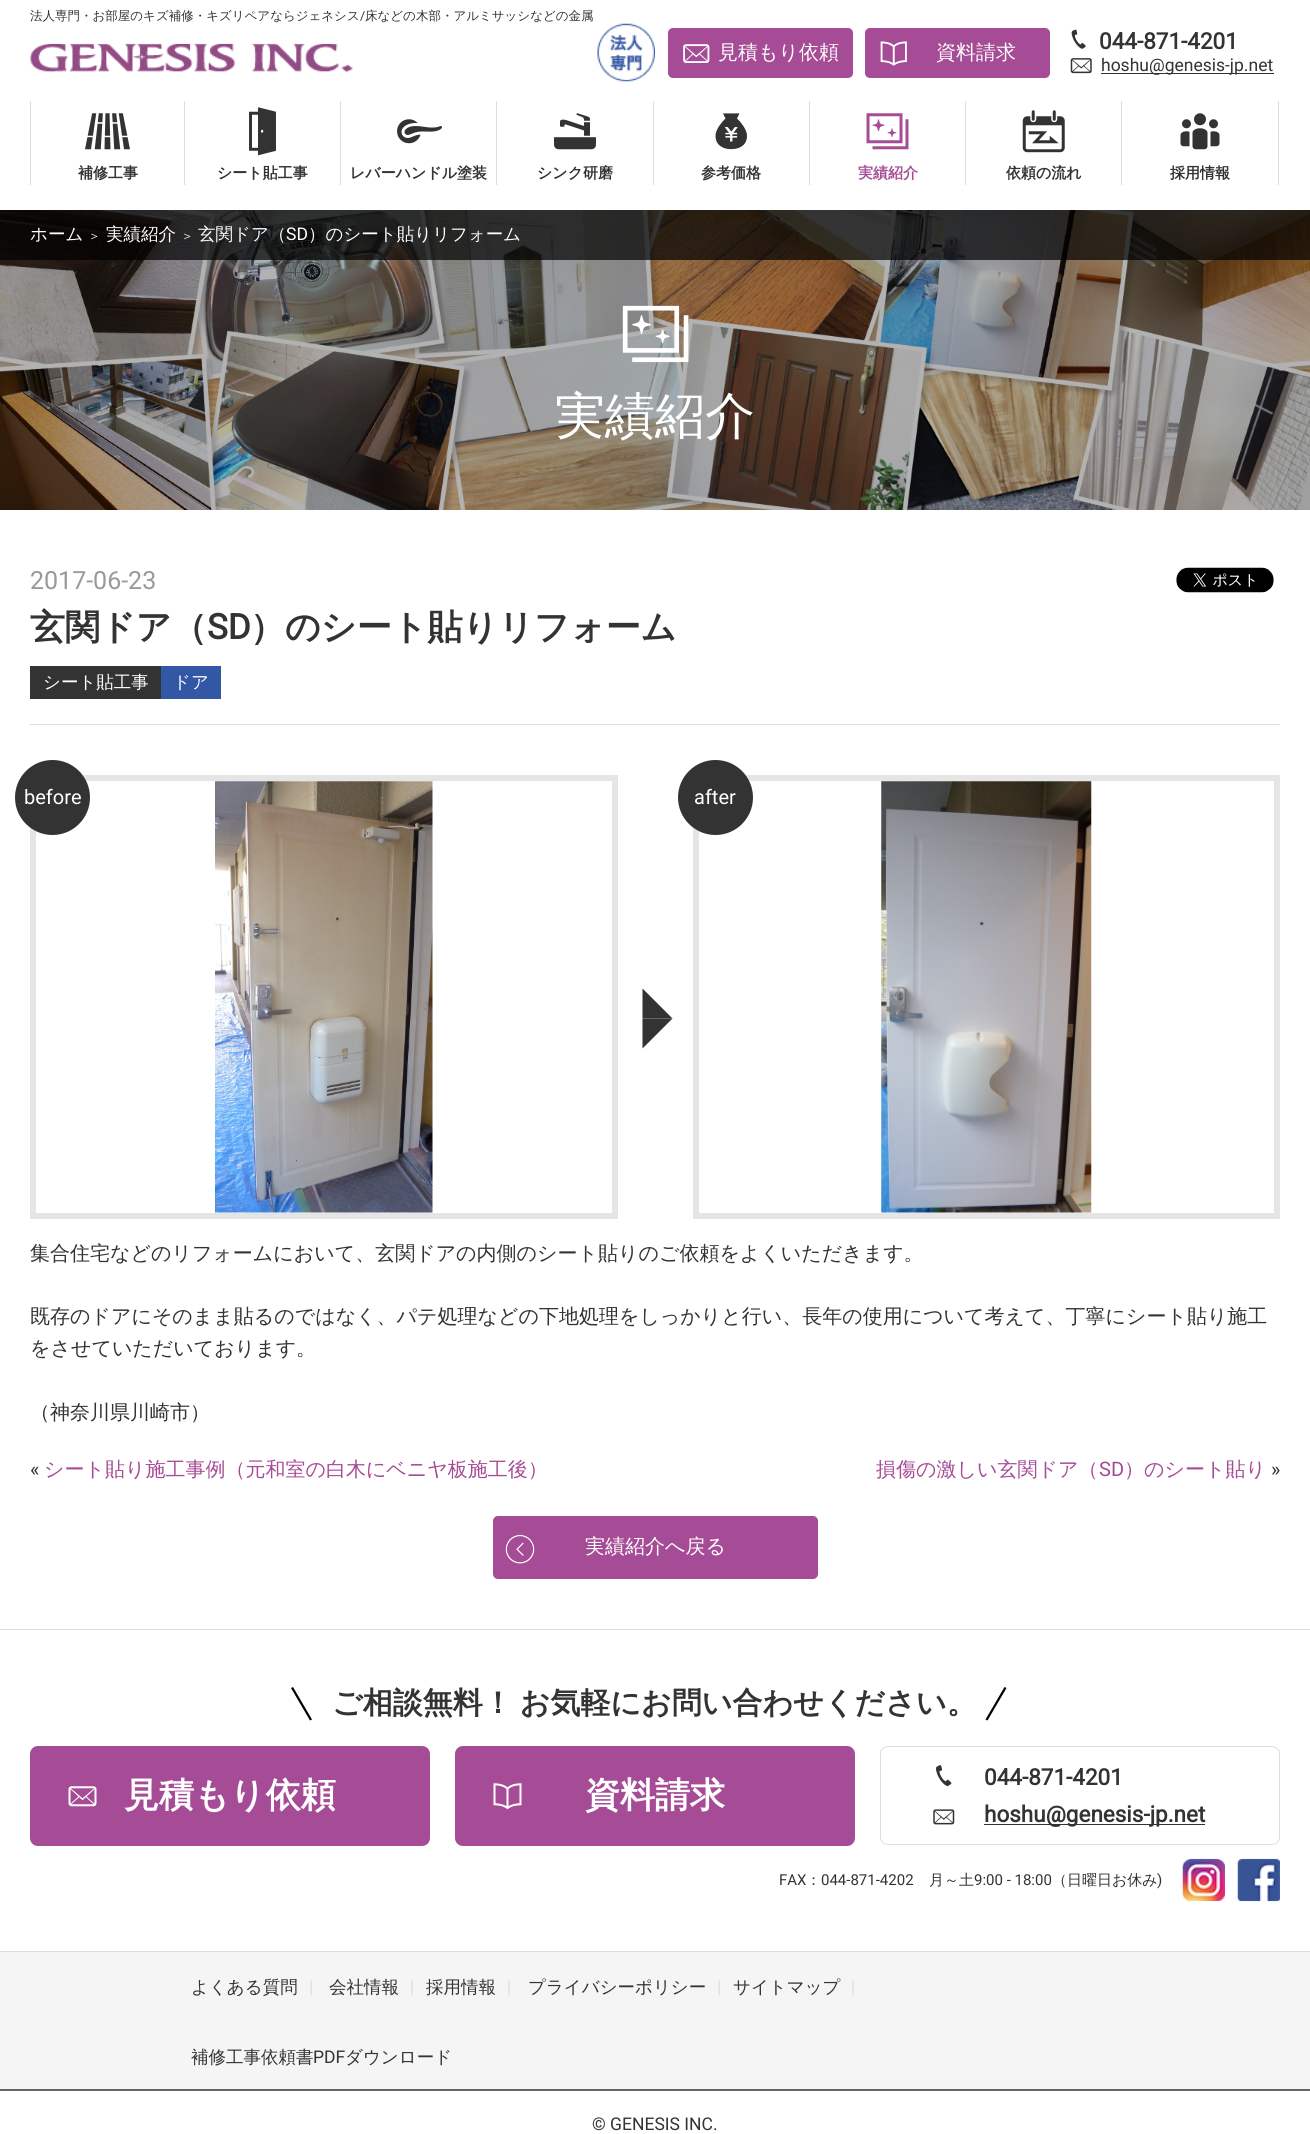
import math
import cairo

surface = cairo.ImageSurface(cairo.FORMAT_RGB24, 1310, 2134)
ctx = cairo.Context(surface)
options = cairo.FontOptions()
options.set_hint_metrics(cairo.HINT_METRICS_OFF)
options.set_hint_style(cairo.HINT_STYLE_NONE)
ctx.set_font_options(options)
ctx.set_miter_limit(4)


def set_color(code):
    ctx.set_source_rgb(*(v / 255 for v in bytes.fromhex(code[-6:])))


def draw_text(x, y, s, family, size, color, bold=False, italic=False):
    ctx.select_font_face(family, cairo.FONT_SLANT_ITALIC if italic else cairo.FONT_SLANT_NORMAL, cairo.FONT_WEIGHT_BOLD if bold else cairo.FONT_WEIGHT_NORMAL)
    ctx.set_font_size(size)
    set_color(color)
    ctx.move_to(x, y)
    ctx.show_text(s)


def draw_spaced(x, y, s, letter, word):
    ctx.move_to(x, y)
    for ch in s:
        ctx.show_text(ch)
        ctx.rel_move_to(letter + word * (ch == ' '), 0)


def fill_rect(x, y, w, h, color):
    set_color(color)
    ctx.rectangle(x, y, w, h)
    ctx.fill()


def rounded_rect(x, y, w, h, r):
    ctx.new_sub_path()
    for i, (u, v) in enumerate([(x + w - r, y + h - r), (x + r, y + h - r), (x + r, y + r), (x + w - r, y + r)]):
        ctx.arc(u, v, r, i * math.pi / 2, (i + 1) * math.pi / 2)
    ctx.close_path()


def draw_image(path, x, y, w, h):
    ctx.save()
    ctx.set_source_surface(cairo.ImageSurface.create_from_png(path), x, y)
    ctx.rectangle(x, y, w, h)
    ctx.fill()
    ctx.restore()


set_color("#ffffff")
ctx.paint()
draw_text(30, 20, "法人専門・お部屋のキズ補修・キズリペアならジェネシス", "WenQuanYi Zen Hei Medium", 12.5, "#333333")
draw_text(360, 20, "/", "Roboto", 12.5, "#333333")
draw_text(365, 20, "床などの木部・アルミサッシなどの金属", "WenQuanYi Zen Hei Medium", 12.5, "#333333")
draw_image("assets/img1.png", 30, 43, 323, 30)
draw_image("assets/img2.png", 597, 23, 58, 59)
set_color("#a64b95")
rounded_rect(668, 28, 185, 50, 5)
ctx.fill()
draw_image("assets/img3.png", 683, 44, 27, 19)
draw_text(718, 59, "見積もり依頼", "WenQuanYi Zen Hei Medium", 20, "#ffffff")
set_color("#a64b95")
rounded_rect(865, 28, 185, 50, 5)
ctx.fill()
draw_image("assets/img4.png", 880, 41, 27, 25)
draw_text(936, 59, "資料請求", "WenQuanYi Zen Hei Medium", 20, "#ffffff")
draw_image("assets/img5.png", 1071, 29, 15, 20)
draw_text(1099, 49, "044-871-4201", "Roboto", 22.5, "#333333", bold=True)
draw_image("assets/img6.png", 1070, 58, 22, 16)
fill_rect(1101, 73, 173, 1, "#333333")
draw_text(1101, 71, "hoshu@genesis-jp.net", "Roboto", 17.5, "#333333")
fill_rect(184, 101, 1, 84, "#dddddd")
fill_rect(30, 101, 1, 84, "#dddddd")
draw_image("assets/img7.png", 85, 113, 45, 37)
draw_text(78, 178, "補修工事", "WenQuanYi Zen Hei", 15, "#333333", bold=True)
fill_rect(340, 101, 1, 84, "#dddddd")
draw_image("assets/img8.png", 249, 107, 27, 49)
draw_text(217, 178, "シート貼工事", "WenQuanYi Zen Hei", 15, "#333333", bold=True)
fill_rect(496, 101, 1, 84, "#dddddd")
draw_image("assets/img9.png", 397, 119, 45, 25)
draw_text(350, 178, "レバーハンドル塗装", "WenQuanYi Zen Hei", 15, "#333333", bold=True)
fill_rect(653, 101, 1, 84, "#dddddd")
draw_image("assets/img10.png", 554, 113, 42, 37)
draw_text(537, 178, "シンク研磨", "WenQuanYi Zen Hei", 15, "#333333", bold=True)
fill_rect(809, 101, 1, 84, "#dddddd")
draw_image("assets/img11.png", 715, 113, 32, 37)
draw_text(701, 178, "参考価格", "WenQuanYi Zen Hei", 15, "#333333", bold=True)
fill_rect(965, 101, 1, 84, "#dddddd")
draw_image("assets/img12.png", 866, 113, 43, 37)
draw_text(858, 178, "実績紹介", "WenQuanYi Zen Hei", 15, "#a64b95", bold=True)
fill_rect(1121, 101, 1, 84, "#dddddd")
draw_image("assets/img13.png", 1022, 110, 43, 43)
draw_text(1006, 178, "依頼の流れ", "WenQuanYi Zen Hei", 15, "#333333", bold=True)
fill_rect(1278, 101, 1, 84, "#dddddd")
draw_image("assets/img14.png", 1180, 113, 40, 37)
draw_text(1170, 178, "採用情報", "WenQuanYi Zen Hei", 15, "#333333", bold=True)
draw_image("assets/img15.png", 0, 210, 1310, 300)
ctx.set_source_rgba(0, 0, 0, 0.7)
ctx.rectangle(0, 210, 1310, 50)
ctx.fill()
draw_text(30, 240, "ホーム", "WenQuanYi Zen Hei Medium", 17.5, "#ffffff")
draw_text(88, 240, "＞", "WenQuanYi Zen Hei Medium", 12.5, "#ffffff")
draw_text(106, 240, "実績紹介", "WenQuanYi Zen Hei Medium", 17.5, "#ffffff")
draw_text(181, 240, "＞", "WenQuanYi Zen Hei Medium", 12.5, "#ffffff")
draw_text(198, 240, "玄関ドア（", "WenQuanYi Zen Hei Medium", 17.5, "#ffffff")
draw_text(286, 240, "SD", "Roboto", 17.5, "#ffffff")
draw_text(308, 240, "）のシート貼りリフォーム", "WenQuanYi Zen Hei Medium", 17.5, "#ffffff")
draw_image("assets/img16.png", 622, 305, 67, 58)
draw_text(555, 433, "実績紹介", "WenQuanYi Zen Hei Medium", 50, "#ffffff")
fill_rect(0, 1629, 1310, 1, "#dddddd")
fill_rect(30, 724, 1250, 1, "#dddddd")
draw_text(30, 589, "2017-06-23", "Roboto", 25, "#999999")
draw_text(30, 639, "玄関ドア（", "WenQuanYi Zen Hei", 35, "#333333", bold=True)
draw_text(207, 639, "SD", "Roboto", 35, "#333333", bold=True)
draw_text(250, 639, "）のシート貼りリフォーム", "WenQuanYi Zen Hei", 35, "#333333", bold=True)
fill_rect(30, 666, 131, 33, "#333333")
draw_text(43, 688, "シート貼工事", "WenQuanYi Zen Hei Medium", 17.5, "#ffffff")
fill_rect(161, 666, 60, 33, "#3258a5")
draw_text(173, 688, "ドア", "WenQuanYi Zen Hei Medium", 17.5, "#ffffff")
draw_image("assets/img17.png", 1176, 567, 98, 26)
ctx.rectangle(33, 778, 582, 438)
set_color("#e5e5e5")
ctx.set_line_width(6)
ctx.stroke()
set_color("#333333")
ctx.arc(52.5, 797.5, 37.5, 0, 2 * math.pi)
ctx.fill()
draw_text(24, 804, "before", "Roboto", 20, "#ffffff")
draw_image("assets/img18.png", 215, 781, 218, 432)
ctx.rectangle(696, 778, 581, 438)
set_color("#e5e5e5")
ctx.stroke()
set_color("#333333")
ctx.arc(715.5, 797.5, 37.5, 0, 2 * math.pi)
ctx.fill()
draw_text(694, 804, "after", "Roboto", 20, "#ffffff")
draw_image("assets/img19.png", 881, 781, 211, 432)
set_color("#333333")
ctx.new_path()
ctx.move_to(642.5, 988.5)
ctx.line_to(672.5, 1018.5)
ctx.line_to(642.5, 1018.5)
ctx.close_path()
ctx.fill()
ctx.new_path()
ctx.move_to(672.5, 1018.5)
ctx.line_to(642.5, 1048.5)
ctx.line_to(642.5, 1018.5)
ctx.close_path()
ctx.fill()
draw_text(30, 1260, "集合住宅などのリフォームにおいて、玄関ドアの内側のシート貼りのご依頼をよくいただきます。", "WenQuanYi Zen Hei Medium", 20, "#333333")
draw_text(30, 1323, "既存のドアにそのまま貼るのではなく、パテ処理などの下地処理をしっかりと行い、長年の使用について考えて、丁寧にシート貼り施工", "WenQuanYi Zen Hei Medium", 20, "#333333")
draw_text(30, 1355, "をさせていただいております。", "WenQuanYi Zen Hei Medium", 20, "#333333")
draw_text(30, 1419, "（神奈川県川崎市）", "WenQuanYi Zen Hei Medium", 20, "#333333")
draw_text(30, 1476, "«", "Roboto", 20, "#333333")
draw_text(44, 1476, "シート貼り施工事例（元和室の白木にベニヤ板施工後）", "WenQuanYi Zen Hei Medium", 20, "#a64b95")
draw_text(876, 1476, "損傷の激しい玄関ドア（", "WenQuanYi Zen Hei Medium", 20, "#a64b95")
draw_text(1099, 1476, "SD", "Roboto", 20, "#a64b95")
draw_text(1124, 1476, "）のシート貼り", "WenQuanYi Zen Hei Medium", 20, "#a64b95")
draw_text(1271, 1476, "»", "Roboto", 20, "#333333")
set_color("#a64b95")
rounded_rect(493, 1516, 325, 63, 5)
ctx.fill()
draw_image("assets/img20.png", 505, 1535, 30, 29)
draw_text(585, 1553, "実績紹介へ戻る", "WenQuanYi Zen Hei Medium", 20, "#ffffff")
set_color("#000000")
ctx.new_path()
ctx.move_to(291, 1688)
ctx.line_to(293, 1687)
ctx.line_to(312, 1719.5)
ctx.line_to(310, 1720.5)
ctx.close_path()
ctx.fill()
ctx.select_font_face("WenQuanYi Zen Hei", cairo.FONT_SLANT_NORMAL, cairo.FONT_WEIGHT_BOLD)
ctx.set_font_size(30)
set_color("#333333")
draw_spaced(332, 1713, "ご相談無料！ お気軽にお問い合わせください。", 0, -2)
set_color("#000000")
ctx.new_path()
ctx.move_to(1004.5, 1687)
ctx.line_to(1006.5, 1688)
ctx.line_to(987.5, 1720.5)
ctx.line_to(985.5, 1719.5)
ctx.close_path()
ctx.fill()
set_color("#a64b95")
rounded_rect(30, 1746, 400, 100, 8)
ctx.fill()
draw_image("assets/img21.png", 68, 1786, 29, 21)
draw_text(124, 1807, "見積もり依頼", "WenQuanYi Zen Hei", 35, "#ffffff", bold=True)
set_color("#a64b95")
rounded_rect(455, 1746, 400, 100, 8)
ctx.fill()
draw_image("assets/img22.png", 493, 1783, 29, 27)
draw_text(585, 1807, "資料請求", "WenQuanYi Zen Hei", 35, "#ffffff", bold=True)
rounded_rect(880.5, 1746.5, 399, 98, 7.5)
set_color("#dddddd")
ctx.set_line_width(1)
ctx.stroke()
draw_image("assets/img23.png", 936, 1765, 16, 22)
draw_text(984, 1785, "044-871-4201", "Roboto", 22.5, "#333333", bold=True)
draw_image("assets/img24.png", 933, 1809, 22, 16)
fill_rect(984, 1824, 221, 1, "#333333")
draw_text(984, 1822, "hoshu@genesis-jp.net", "Roboto", 22.5, "#333333", bold=True)
draw_text(779, 1885, "FAX", "Roboto", 15, "#333333")
draw_text(806, 1885, "：", "WenQuanYi Zen Hei Medium", 15, "#333333")
draw_text(821, 1885, "044-871-4202", "Roboto", 15, "#333333")
draw_text(929, 1885, "月～土", "WenQuanYi Zen Hei Medium", 15, "#333333")
draw_text(974, 1885, "9:00 - 18:00", "Roboto", 15, "#333333")
draw_text(1052, 1885, "（日曜日お休み", "WenQuanYi Zen Hei Medium", 15, "#333333")
draw_text(1157, 1885, ")", "Roboto", 15, "#333333")
draw_image("assets/img25.png", 1182, 1858, 43, 44)
draw_image("assets/img26.png", 1237, 1858, 43, 44)
fill_rect(0, 1952, 1310, 137, "#f5f5f5")
fill_rect(0, 1951, 1310, 1, "#dddddd")
draw_text(191, 1993, "よくある質問", "WenQuanYi Zen Hei Medium", 17.5, "#333333")
draw_text(309, 1993, "|", "Roboto", 17.5, "#dddddd")
draw_text(329, 1993, "会社情報", "WenQuanYi Zen Hei Medium", 17.5, "#333333")
draw_text(410, 1993, "|", "Roboto", 17.5, "#dddddd")
draw_text(426, 1993, "採用情報", "WenQuanYi Zen Hei Medium", 17.5, "#333333")
draw_text(507, 1993, "|", "Roboto", 17.5, "#dddddd")
draw_text(528, 1993, "プライバシーポリシー", "WenQuanYi Zen Hei Medium", 17.5, "#333333")
draw_text(717, 1993, "|", "Roboto", 17.5, "#dddddd")
draw_text(733, 1993, "サイトマップ", "WenQuanYi Zen Hei Medium", 17.5, "#333333")
draw_text(851, 1993, "|", "Roboto", 17.5, "#dddddd")
draw_text(191, 2063, "補修工事依頼書", "WenQuanYi Zen Hei Medium", 17.5, "#333333")
draw_text(313, 2063, "PDF", "Roboto", 17.5, "#333333")
draw_text(345, 2063, "ダウンロード", "WenQuanYi Zen Hei Medium", 17.5, "#333333")
fill_rect(0, 2089, 1310, 2, "#666666")
draw_text(592, 2130, "© GENESIS INC.", "Roboto", 17.5, "#333333")
surface.write_to_png("output.png")
